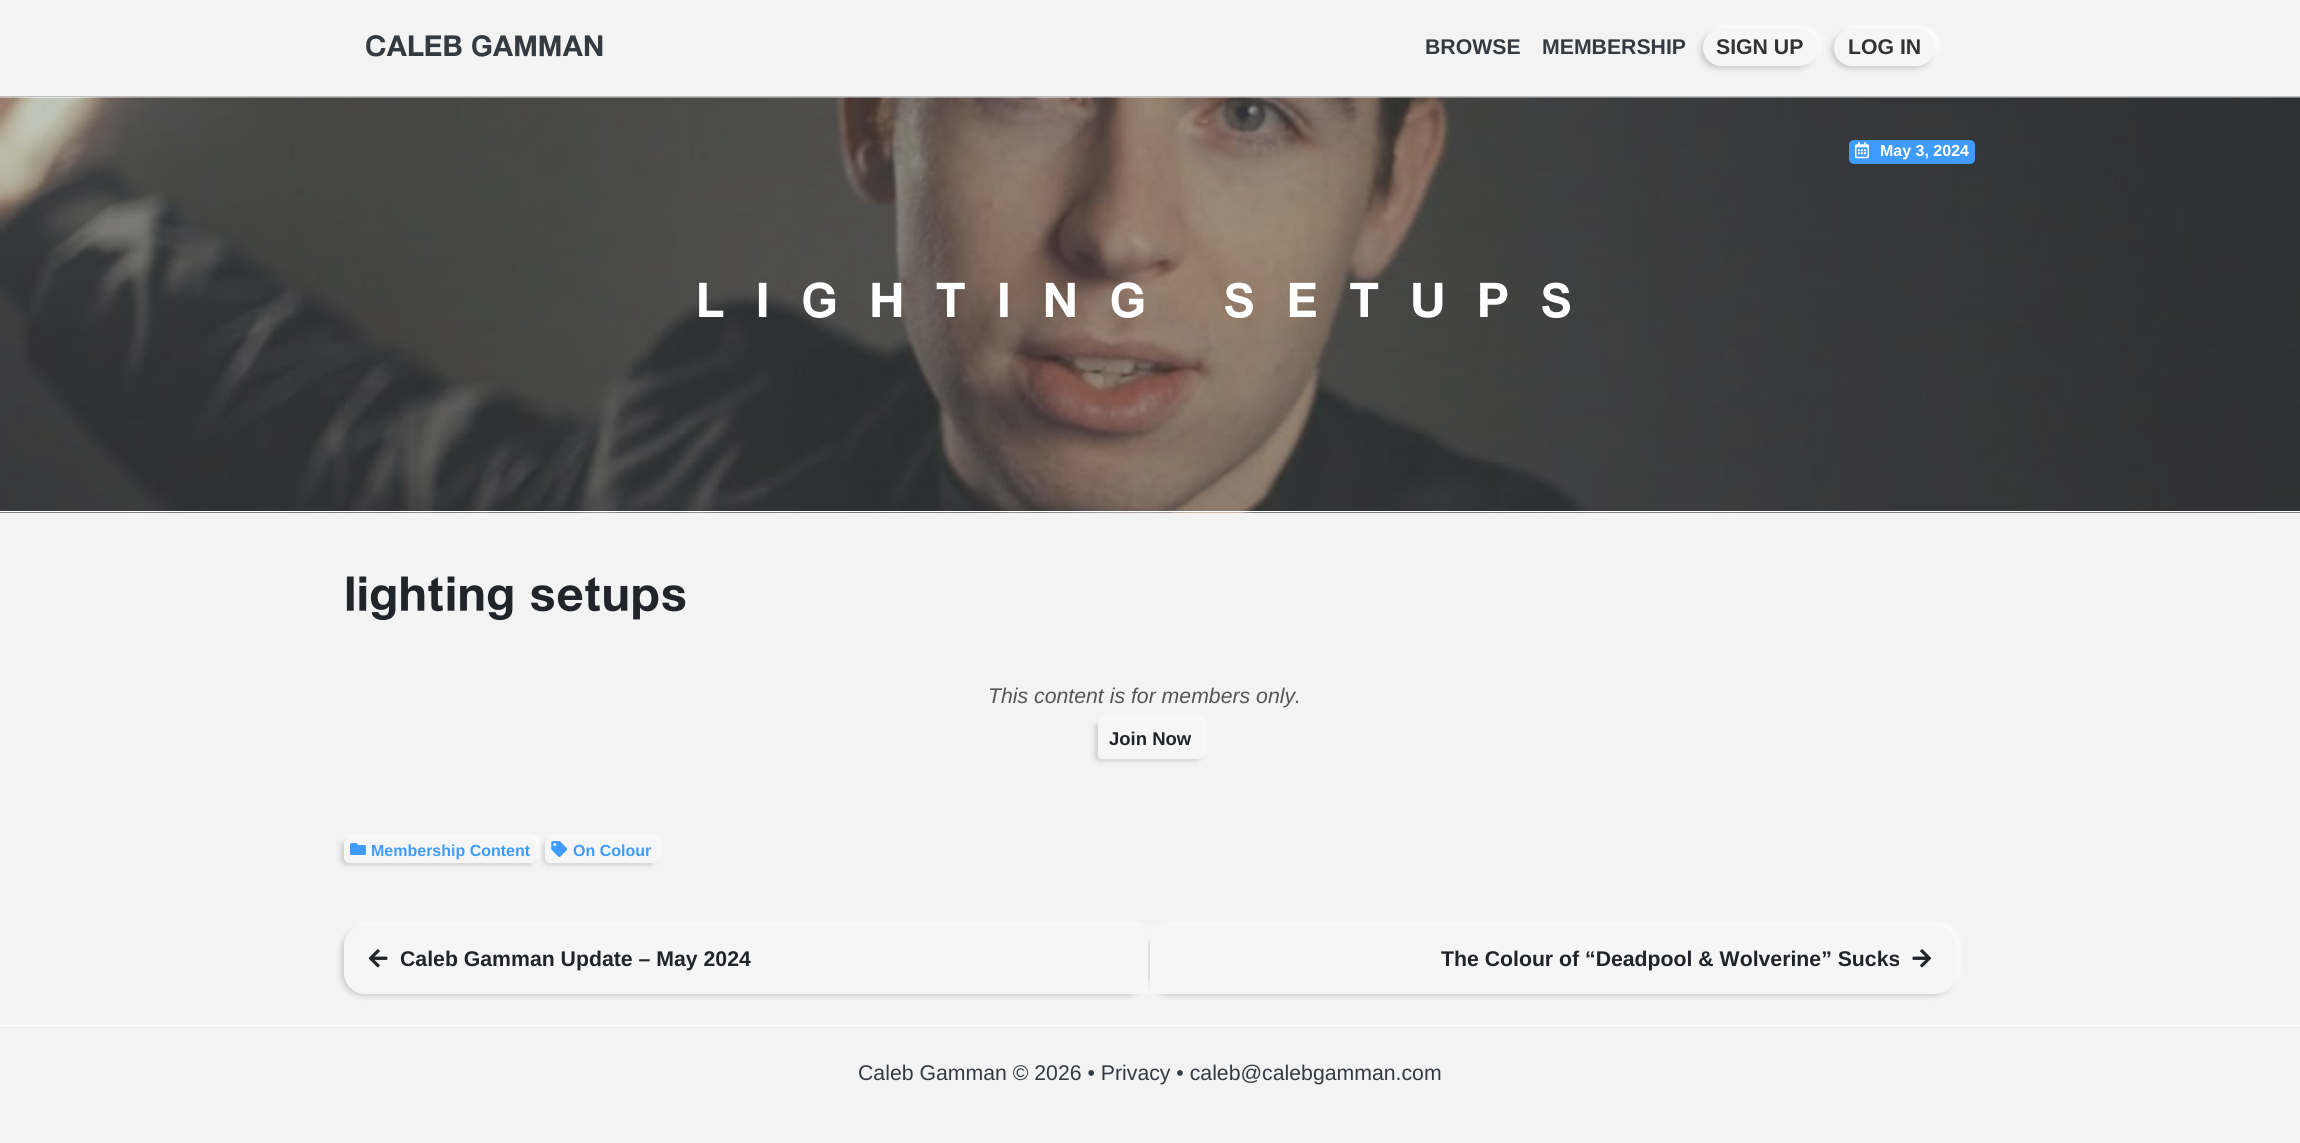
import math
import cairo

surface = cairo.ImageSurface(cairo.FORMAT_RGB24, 2300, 1143)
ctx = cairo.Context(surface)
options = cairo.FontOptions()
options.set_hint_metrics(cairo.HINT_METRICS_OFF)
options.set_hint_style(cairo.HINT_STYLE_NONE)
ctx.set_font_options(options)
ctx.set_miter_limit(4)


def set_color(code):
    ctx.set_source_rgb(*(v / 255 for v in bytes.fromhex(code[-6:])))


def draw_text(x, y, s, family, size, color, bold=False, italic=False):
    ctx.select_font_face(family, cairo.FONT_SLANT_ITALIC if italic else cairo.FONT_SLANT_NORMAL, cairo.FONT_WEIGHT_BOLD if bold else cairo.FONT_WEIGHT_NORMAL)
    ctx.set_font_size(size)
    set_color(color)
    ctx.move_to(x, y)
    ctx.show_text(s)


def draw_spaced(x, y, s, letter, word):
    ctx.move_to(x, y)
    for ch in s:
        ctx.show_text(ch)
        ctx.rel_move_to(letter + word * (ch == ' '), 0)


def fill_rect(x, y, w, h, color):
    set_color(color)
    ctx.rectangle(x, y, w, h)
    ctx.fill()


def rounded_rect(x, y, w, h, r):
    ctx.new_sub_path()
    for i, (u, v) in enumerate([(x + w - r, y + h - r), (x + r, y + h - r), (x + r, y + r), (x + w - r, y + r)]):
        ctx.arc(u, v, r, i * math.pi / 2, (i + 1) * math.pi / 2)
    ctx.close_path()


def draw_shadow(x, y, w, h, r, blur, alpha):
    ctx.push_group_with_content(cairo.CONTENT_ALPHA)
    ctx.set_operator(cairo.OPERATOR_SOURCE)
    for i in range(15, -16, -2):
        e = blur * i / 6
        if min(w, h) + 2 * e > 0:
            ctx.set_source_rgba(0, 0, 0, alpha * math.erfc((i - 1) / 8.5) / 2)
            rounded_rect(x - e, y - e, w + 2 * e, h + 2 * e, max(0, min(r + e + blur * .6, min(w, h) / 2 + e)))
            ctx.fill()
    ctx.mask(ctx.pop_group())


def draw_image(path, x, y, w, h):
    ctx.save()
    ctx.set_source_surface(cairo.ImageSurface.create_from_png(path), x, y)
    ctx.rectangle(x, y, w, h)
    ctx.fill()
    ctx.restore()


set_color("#f3f3f3")
ctx.paint()
fill_rect(0, 96, 2300, 1, "#bdbdbd")
draw_text(365, 56, "CALEB GAMMAN", "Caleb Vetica", 32, "#343a40", bold=True)
draw_text(1425, 54, "BROWSE", "Liberation Sans", 21.25, "#343a40", bold=True)
draw_text(1542, 54, "MEMBERSHIP", "Liberation Sans", 21.25, "#343a40", bold=True)
set_color("#ffffff")
draw_shadow(1705, 26, 115, 38, 19, 2.5, 1)
set_color("#383838")
draw_shadow(1700, 31, 115, 38, 19, 2.5, 0.2)
set_color("#f6f6f6")
rounded_rect(1703, 29, 115, 37, 18.5)
ctx.fill()
draw_text(1716, 54, "SIGN UP", "Liberation Sans", 21.25, "#333333", bold=True)
set_color("#ffffff")
draw_shadow(1836, 26, 102, 38, 19, 2.5, 1)
set_color("#383838")
draw_shadow(1831, 31, 102, 38, 19, 2.5, 0.2)
set_color("#f6f6f6")
rounded_rect(1834, 29, 101, 37, 18.5)
ctx.fill()
draw_text(1848, 54, "LOG IN", "Liberation Sans", 21.25, "#333333", bold=True)
draw_image("assets/img1.png", 0, 97, 2300, 416)
fill_rect(0, 511, 2300, 1, "#ffffff")
set_color("#3f9bff")
rounded_rect(1849, 140, 126, 24, 5)
ctx.fill()
draw_image("assets/img2.png", 1855, 142, 14, 17)
draw_text(1880, 156, "May 3, 2024", "Liberation Sans", 16, "#ffffff", bold=True)
ctx.select_font_face("Caleb Vetica", cairo.FONT_SLANT_NORMAL, cairo.FONT_WEIGHT_BOLD)
ctx.set_font_size(53.1)
draw_spaced(696, 317, "LIGHTING SETUPS", 31.9, 0)
draw_text(344, 611, "lighting setups", "Caleb Vetica", 53.1, "#212529", bold=True)
draw_text(988, 703, "This content is for members only.", "Liberation Sans", 21.25, "#555555", italic=True)
set_color("#ffffff")
draw_shadow(1100, 718, 105, 38, 4, 2.5, 1)
set_color("#383838")
draw_shadow(1095, 723, 105, 38, 4, 2.5, 0.2)
set_color("#f6f6f6")
rounded_rect(1098, 720, 105, 39, 4)
ctx.fill()
draw_text(1109, 745, "Join Now", "Liberation Sans", 18.5, "#212529", bold=True)
set_color("#ffffff")
draw_shadow(346, 836, 193, 24, 5, 2.5, 1)
set_color("#383838")
draw_shadow(341, 841, 193, 24, 5, 2.5, 0.2)
set_color("#f6f6f6")
rounded_rect(344, 839, 192, 24, 5)
ctx.fill()
draw_image("assets/img3.png", 350, 843, 16, 12)
draw_text(371, 856, "Membership Content", "Liberation Sans", 16, "#3f9bff", bold=True)
set_color("#ffffff")
draw_shadow(548, 836, 112, 24, 5, 2.5, 1)
set_color("#383838")
draw_shadow(543, 841, 112, 24, 5, 2.5, 0.2)
set_color("#f6f6f6")
rounded_rect(545, 839, 113, 24, 5)
ctx.fill()
draw_image("assets/img4.png", 551, 841, 17, 16)
draw_text(573, 856, "On Colour", "Liberation Sans", 16, "#3f9bff", bold=True)
set_color("#ffffff")
draw_shadow(346, 923, 807, 68, 21, 2.5, 1)
set_color("#383838")
draw_shadow(341, 928, 807, 68, 21, 2.5, 0.2)
set_color("#f6f6f6")
ctx.new_path()
ctx.move_to(365, 925)
ctx.line_to(1150, 925)
ctx.line_to(1150, 994)
ctx.line_to(365, 994)
ctx.curve_to(353.5, 994, 344, 984.5, 344, 973)
ctx.line_to(344, 946)
ctx.curve_to(344, 934.5, 353.5, 925, 365, 925)
ctx.close_path()
ctx.fill()
draw_image("assets/img5.png", 368, 949, 20, 19)
draw_text(400, 966, "Caleb Gamman Update – May 2024", "Liberation Sans", 21.25, "#212529", bold=True)
set_color("#ffffff")
draw_shadow(1153, 923, 806, 68, 21, 2.5, 1)
ctx.save()
ctx.rectangle(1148, 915, 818, 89)
ctx.clip()
set_color("#383838")
draw_shadow(1148, 928, 806, 68, 21, 2.5, 0.2)
ctx.restore()
set_color("#f6f6f6")
ctx.new_path()
ctx.move_to(1150, 925)
ctx.line_to(1935, 925)
ctx.curve_to(1946.5, 925, 1956, 934.5, 1956, 946)
ctx.line_to(1956, 973)
ctx.curve_to(1956, 984.5, 1946.5, 994, 1935, 994)
ctx.line_to(1150, 994)
ctx.close_path()
ctx.fill()
draw_text(1441, 966, "The Colour of “Deadpool & Wolverine” Sucks", "Liberation Sans", 21.25, "#212529", bold=True)
draw_image("assets/img6.png", 1912, 949, 20, 19)
fill_rect(0, 1025, 2300, 1, "#ffffff")
draw_text(858, 1080, "Caleb Gamman © 2026 • Privacy • caleb@calebgamman.com", "Liberation Sans", 21.25, "#343a40")
surface.write_to_png("output.png")
